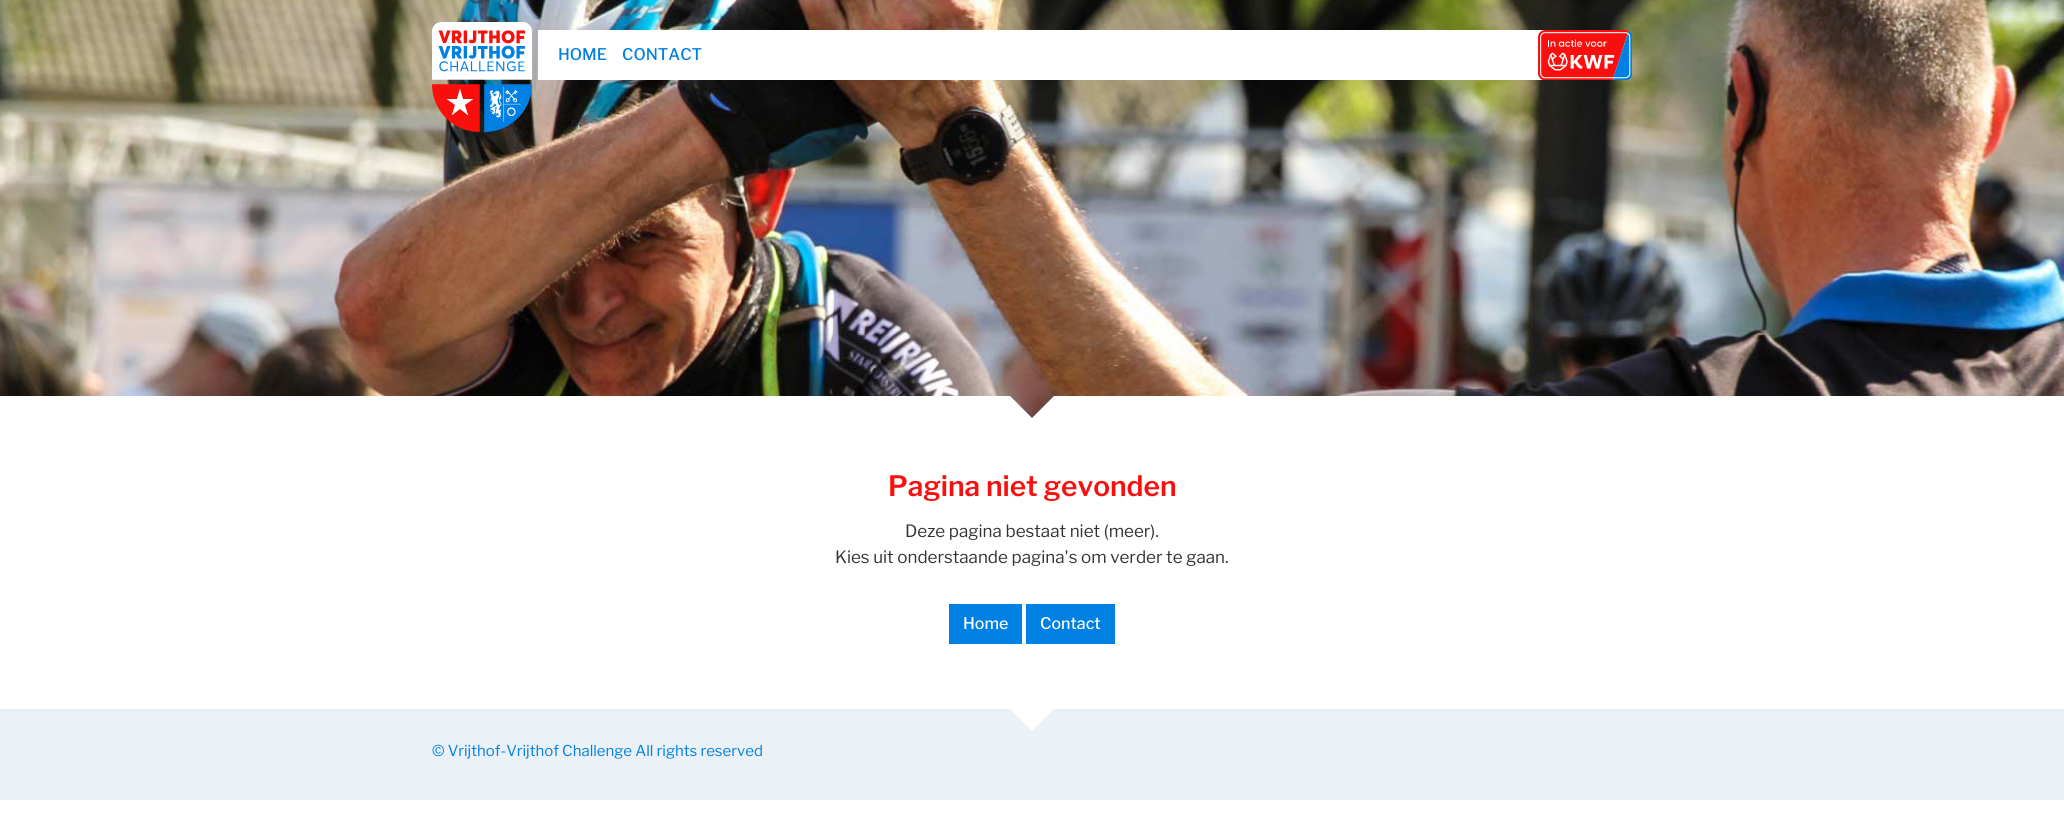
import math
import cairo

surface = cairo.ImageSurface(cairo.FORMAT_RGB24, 2064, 837)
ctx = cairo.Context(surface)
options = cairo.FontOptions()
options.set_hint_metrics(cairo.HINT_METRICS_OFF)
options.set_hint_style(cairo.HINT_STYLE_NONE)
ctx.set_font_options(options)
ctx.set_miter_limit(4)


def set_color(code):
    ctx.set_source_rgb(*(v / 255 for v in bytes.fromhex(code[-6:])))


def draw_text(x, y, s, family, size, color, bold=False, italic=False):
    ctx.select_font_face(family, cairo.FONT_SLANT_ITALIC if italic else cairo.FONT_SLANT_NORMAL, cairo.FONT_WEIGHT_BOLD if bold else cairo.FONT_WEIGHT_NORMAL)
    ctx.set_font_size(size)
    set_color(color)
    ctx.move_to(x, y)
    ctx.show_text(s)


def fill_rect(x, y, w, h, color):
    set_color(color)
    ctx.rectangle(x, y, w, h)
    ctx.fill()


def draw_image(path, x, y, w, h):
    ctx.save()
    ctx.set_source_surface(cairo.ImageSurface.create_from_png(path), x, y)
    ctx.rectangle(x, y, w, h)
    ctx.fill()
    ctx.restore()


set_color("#ffffff")
ctx.paint()
draw_image("assets/img1.png", 0, 0, 2064, 418)
draw_image("assets/img2.png", 432, 22, 100, 110)
set_color("#ffffff")
ctx.new_path()
ctx.move_to(538, 30)
ctx.line_to(1624, 30)
ctx.curve_to(1628.5, 30, 1632, 33.5, 1632, 38)
ctx.line_to(1632, 72)
ctx.curve_to(1632, 76.5, 1628.5, 80, 1624, 80)
ctx.line_to(538, 80)
ctx.close_path()
ctx.fill()
draw_text(558, 60, "HOME", "Libre Franklin Medium", 16, "#0080e3")
draw_text(622, 60, "CONTACT", "Libre Franklin Medium", 16, "#0080e3")
draw_image("assets/img3.png", 1538, 30, 94, 50)
ctx.save()
ctx.rectangle(0, 396, 1032, 24)
ctx.clip()
set_color("#ffffff")
ctx.new_path()
ctx.move_to(1006, 392)
ctx.line_to(-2, 392)
ctx.line_to(-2, 421)
ctx.line_to(1035, 421)
ctx.close_path()
ctx.fill()
ctx.restore()
ctx.save()
ctx.rectangle(1032, 396, 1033, 24)
ctx.clip()
set_color("#ffffff")
ctx.new_path()
ctx.move_to(1059, 391)
ctx.line_to(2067, 391)
ctx.line_to(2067, 420)
ctx.line_to(1030, 420)
ctx.close_path()
ctx.fill()
ctx.restore()
draw_text(888, 496, "Pagina niet gevonden", "Libre Franklin SemiBold", 28, "#f90f0e")
draw_text(905, 537, "Deze pagina bestaat niet (meer).", "Libre Franklin", 17, "#333333")
draw_text(835, 563, "Kies uit onderstaande pagina's om verder te gaan.", "Libre Franklin", 17, "#333333")
fill_rect(949, 604, 73, 40, "#0080e3")
draw_text(963, 629, "Home", "Libre Franklin Medium", 16, "#ffffff")
fill_rect(1026, 604, 89, 40, "#0080e3")
draw_text(1040, 629, "Contact", "Libre Franklin Medium", 16, "#ffffff")
fill_rect(0, 733, 2064, 67, "#ebf2f7")
ctx.save()
ctx.rectangle(0, 709, 1032, 24)
ctx.clip()
ctx.new_path()
ctx.move_to(1006, 705)
ctx.line_to(-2, 705)
ctx.line_to(-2, 734)
ctx.line_to(1035, 734)
ctx.close_path()
ctx.fill()
ctx.restore()
ctx.save()
ctx.rectangle(1032, 709, 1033, 24)
ctx.clip()
ctx.new_path()
ctx.move_to(1059, 704)
ctx.line_to(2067, 704)
ctx.line_to(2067, 733)
ctx.line_to(1030, 733)
ctx.close_path()
ctx.fill()
ctx.restore()
draw_text(432, 756, "© Vrijthof-Vrijthof Challenge All rights reserved", "Libre Franklin", 15, "#0080e3")
surface.write_to_png("output.png")
